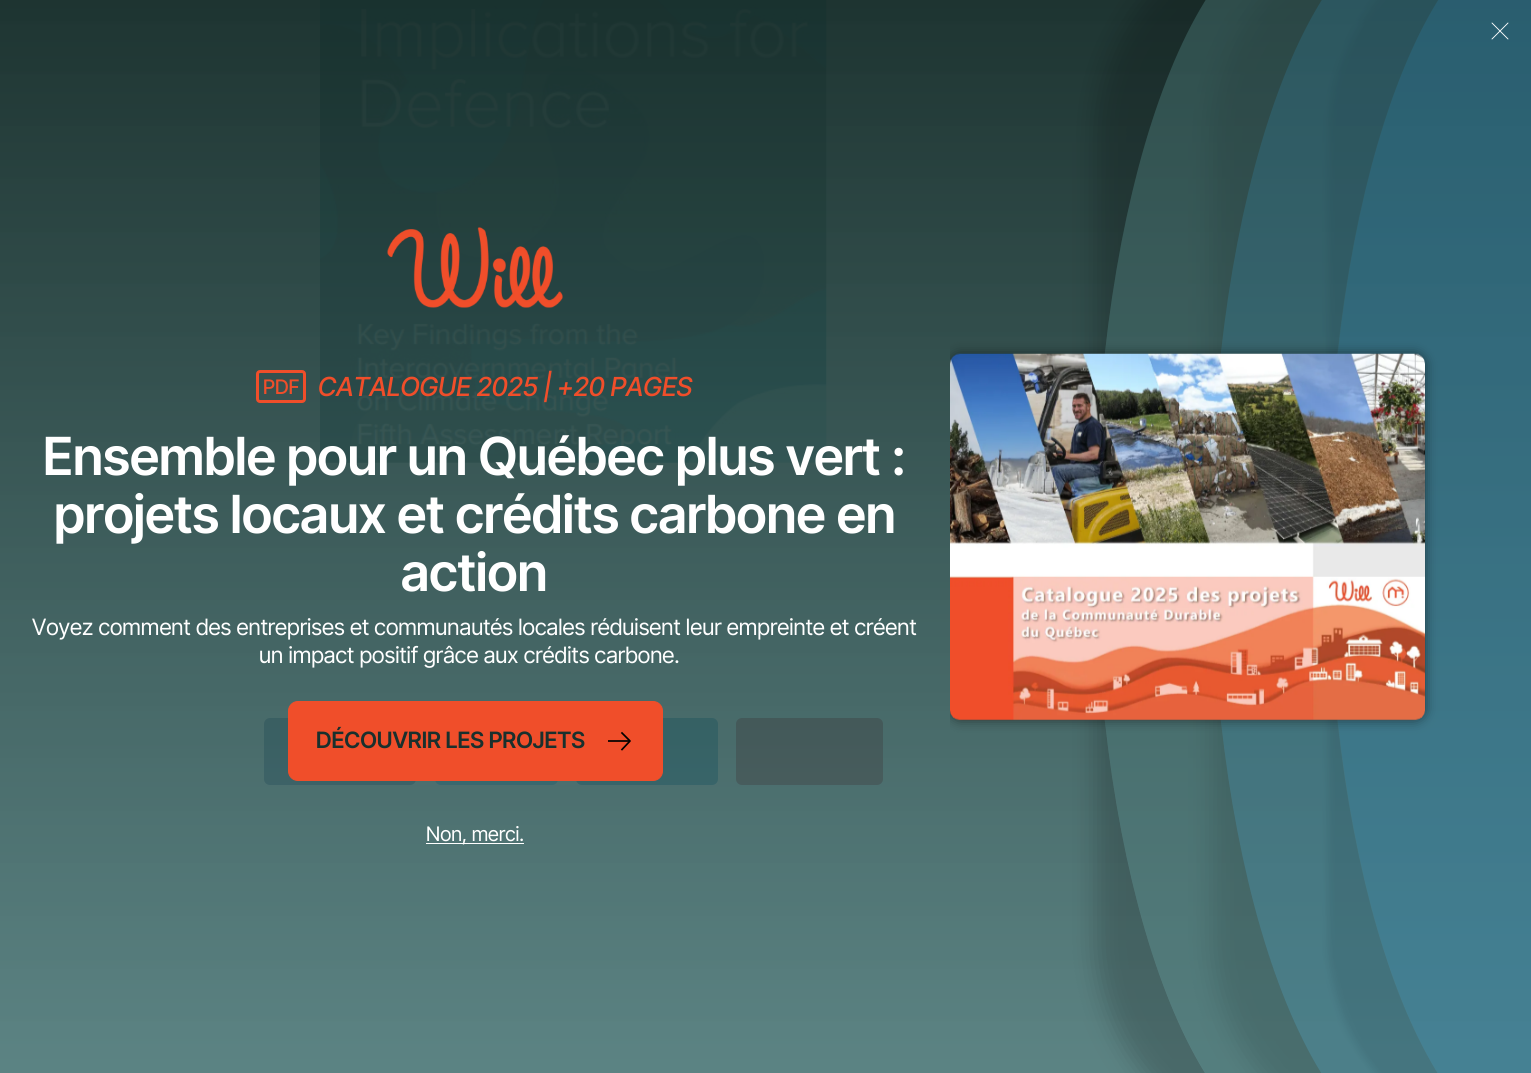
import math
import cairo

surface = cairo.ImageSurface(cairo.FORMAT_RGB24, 1531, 1073)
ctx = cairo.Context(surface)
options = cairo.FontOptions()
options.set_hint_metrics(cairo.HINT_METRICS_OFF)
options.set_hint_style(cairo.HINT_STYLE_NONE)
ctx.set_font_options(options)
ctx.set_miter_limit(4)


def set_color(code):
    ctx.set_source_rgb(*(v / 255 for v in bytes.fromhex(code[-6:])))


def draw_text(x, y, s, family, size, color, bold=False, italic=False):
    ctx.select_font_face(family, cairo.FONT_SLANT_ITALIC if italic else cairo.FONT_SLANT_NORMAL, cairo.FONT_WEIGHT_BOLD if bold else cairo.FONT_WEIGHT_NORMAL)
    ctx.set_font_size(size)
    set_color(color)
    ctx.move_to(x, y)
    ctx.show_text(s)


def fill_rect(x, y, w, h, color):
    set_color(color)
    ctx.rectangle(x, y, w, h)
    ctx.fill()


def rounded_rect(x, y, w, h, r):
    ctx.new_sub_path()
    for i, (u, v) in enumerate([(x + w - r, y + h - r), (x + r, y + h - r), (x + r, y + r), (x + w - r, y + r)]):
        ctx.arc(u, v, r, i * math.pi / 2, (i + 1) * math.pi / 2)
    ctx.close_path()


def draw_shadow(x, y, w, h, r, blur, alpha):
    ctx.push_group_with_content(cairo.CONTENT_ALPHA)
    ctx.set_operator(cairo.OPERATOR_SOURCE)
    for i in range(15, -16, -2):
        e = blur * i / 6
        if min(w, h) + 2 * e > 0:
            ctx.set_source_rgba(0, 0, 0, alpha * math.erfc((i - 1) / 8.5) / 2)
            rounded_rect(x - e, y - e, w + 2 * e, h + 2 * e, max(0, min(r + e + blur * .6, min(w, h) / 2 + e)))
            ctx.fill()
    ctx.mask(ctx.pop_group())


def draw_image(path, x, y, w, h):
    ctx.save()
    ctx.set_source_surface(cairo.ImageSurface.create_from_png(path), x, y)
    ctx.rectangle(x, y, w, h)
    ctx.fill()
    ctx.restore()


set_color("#ffffff")
ctx.paint()
draw_image("assets/img1.png", 320, 0, 507, 463)
set_color("#3b5998")
rounded_rect(264, 718, 152, 67, 6)
ctx.fill()
set_color("#1da1f2")
rounded_rect(435, 718, 123, 67, 6)
ctx.fill()
set_color("#0077b5")
rounded_rect(576, 718, 142, 67, 6)
ctx.fill()
set_color("#bd081c")
rounded_rect(736, 718, 147, 67, 6)
ctx.fill()
gradient = cairo.LinearGradient(766, 0, 766, 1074)
gradient.add_color_stop_rgba(0, 0.098, 0.188, 0.176, 0.98)
gradient.add_color_stop_rgba(1, 0.29, 0.463, 0.463, 0.9)
ctx.set_source(gradient)
ctx.rectangle(0, 0, 1531, 1073)
ctx.fill()
ctx.save()
ctx.set_fill_rule(cairo.FILL_RULE_EVEN_ODD)
ctx.new_path()
ctx.move_to(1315, 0)
ctx.line_to(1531, 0)
ctx.line_to(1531, 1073)
ctx.line_to(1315, 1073)
ctx.close_path()
ctx.move_to(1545.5, -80)
ctx.line_to(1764, -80)
ctx.line_to(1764, 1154)
ctx.line_to(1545.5, 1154)
ctx.curve_to(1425, 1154, 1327.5, 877.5, 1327.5, 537)
ctx.curve_to(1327.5, 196.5, 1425, -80, 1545.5, -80)
ctx.close_path()
ctx.clip()
set_color("#000000")
draw_shadow(1328, -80, 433, 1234, 218, 4, 0.16)
ctx.restore()
ctx.set_source_rgba(0.016, 0.588, 1, 0.15)
ctx.new_path()
ctx.move_to(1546, -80)
ctx.line_to(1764, -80)
ctx.line_to(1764, 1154)
ctx.line_to(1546, 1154)
ctx.curve_to(1425, 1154, 1328, 878, 1328, 537)
ctx.curve_to(1328, 196, 1425, -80, 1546, -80)
ctx.close_path()
ctx.fill()
ctx.save()
ctx.set_fill_rule(cairo.FILL_RULE_EVEN_ODD)
ctx.new_path()
ctx.move_to(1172, 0)
ctx.line_to(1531, 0)
ctx.line_to(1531, 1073)
ctx.line_to(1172, 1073)
ctx.close_path()
ctx.move_to(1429.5, -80)
ctx.line_to(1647.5, -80)
ctx.line_to(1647.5, 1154)
ctx.line_to(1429.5, 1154)
ctx.curve_to(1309, 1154, 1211, 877.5, 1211, 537)
ctx.curve_to(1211, 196.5, 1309, -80, 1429.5, -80)
ctx.close_path()
ctx.clip()
set_color("#000000")
draw_shadow(1211, -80, 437, 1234, 218.5, 12.5, 0.2)
ctx.restore()
ctx.new_path()
ctx.move_to(1429, -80)
ctx.line_to(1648, -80)
ctx.line_to(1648, 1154)
ctx.line_to(1429, 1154)
ctx.curve_to(1309, 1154, 1211, 878, 1211, 537)
ctx.curve_to(1211, 196, 1309, -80, 1429, -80)
ctx.close_path()
ctx.fill()
ctx.save()
ctx.set_fill_rule(cairo.FILL_RULE_EVEN_ODD)
ctx.new_path()
ctx.move_to(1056, 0)
ctx.line_to(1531, 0)
ctx.line_to(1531, 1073)
ctx.line_to(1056, 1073)
ctx.close_path()
ctx.move_to(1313, -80)
ctx.line_to(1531, -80)
ctx.line_to(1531, 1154)
ctx.line_to(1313, 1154)
ctx.curve_to(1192.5, 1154, 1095, 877.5, 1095, 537)
ctx.curve_to(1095, 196.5, 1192.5, -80, 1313, -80)
ctx.close_path()
ctx.clip()
set_color("#000000")
draw_shadow(1095, -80, 436, 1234, 218, 12.5, 0.2)
ctx.restore()
ctx.set_source_rgba(0.29, 0.463, 0.463, 0.38)
ctx.new_path()
ctx.move_to(1313, -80)
ctx.line_to(1531, -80)
ctx.line_to(1531, 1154)
ctx.line_to(1313, 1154)
ctx.curve_to(1193, 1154, 1095, 878, 1095, 537)
ctx.curve_to(1095, 196, 1193, -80, 1313, -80)
ctx.close_path()
ctx.fill()
ctx.save()
ctx.rectangle(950, 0, 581, 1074)
ctx.clip()
set_color("#000000")
draw_shadow(950, 354, 475, 366, 10, 6, 0.5)
ctx.restore()
draw_image("assets/img2.png", 950, 353, 475, 368)
ctx.new_path()
ctx.move_to(1492, 23)
ctx.line_to(1508, 39)
ctx.move_to(1508, 23)
ctx.line_to(1492, 39)
set_color("#ffffff")
ctx.set_line_width(0.9)
ctx.set_line_cap(cairo.LINE_CAP_ROUND)
ctx.stroke()
draw_image("assets/img3.png", 387, 227, 176, 81)
rounded_rect(257.5, 371.5, 47, 30, 2.5)
set_color("#f04e2a")
ctx.set_line_width(3)
ctx.set_line_cap(cairo.LINE_CAP_BUTT)
ctx.stroke()
draw_text(263, 394, "PDF", "Inter Tight Medium", 20, "#f04e2a")
draw_text(318, 396, "CATALOGUE 2025 | +20 PAGES", "Inter Tight Medium", 26.25, "#f04e2a", italic=True)
draw_text(43, 475, "Ensemble pour un Québec plus vert :", "Inter Tight SemiBold", 52.5, "#ffffff")
draw_text(54, 533, "projets locaux et crédits carbone en", "Inter Tight SemiBold", 52.5, "#ffffff")
draw_text(401, 591, "action", "Inter Tight SemiBold", 52.5, "#ffffff")
draw_text(32, 635, "Voyez comment des entreprises et communautés locales réduisent leur empreinte et créent", "Inter Tight", 22.5, "#ffffff")
draw_text(259, 663, "un impact positif grâce aux crédits carbone.", "Inter Tight", 22.5, "#ffffff")
set_color("#f04e2a")
rounded_rect(288.5, 701.5, 374, 79, 9.5)
ctx.fill_preserve()
ctx.set_line_width(1)
ctx.stroke()
draw_text(316, 748, "DÉCOUVRIR LES PROJETS", "Inter Tight SemiBold", 22.5, "#19302d")
fill_rect(608, 740, 22, 2, "#240c06")
ctx.new_path()
ctx.move_to(622, 733)
ctx.line_to(630, 741)
ctx.line_to(622, 749.5)
set_color("#000000")
ctx.set_line_width(1.7)
ctx.set_line_cap(cairo.LINE_CAP_SQUARE)
ctx.set_line_join(cairo.LINE_JOIN_ROUND)
ctx.stroke()
fill_rect(426, 843, 98, 1, "#ffffff")
draw_text(426, 841, "Non, merci.", "Inter Tight", 20, "#ffffff")
surface.write_to_png("output.png")
